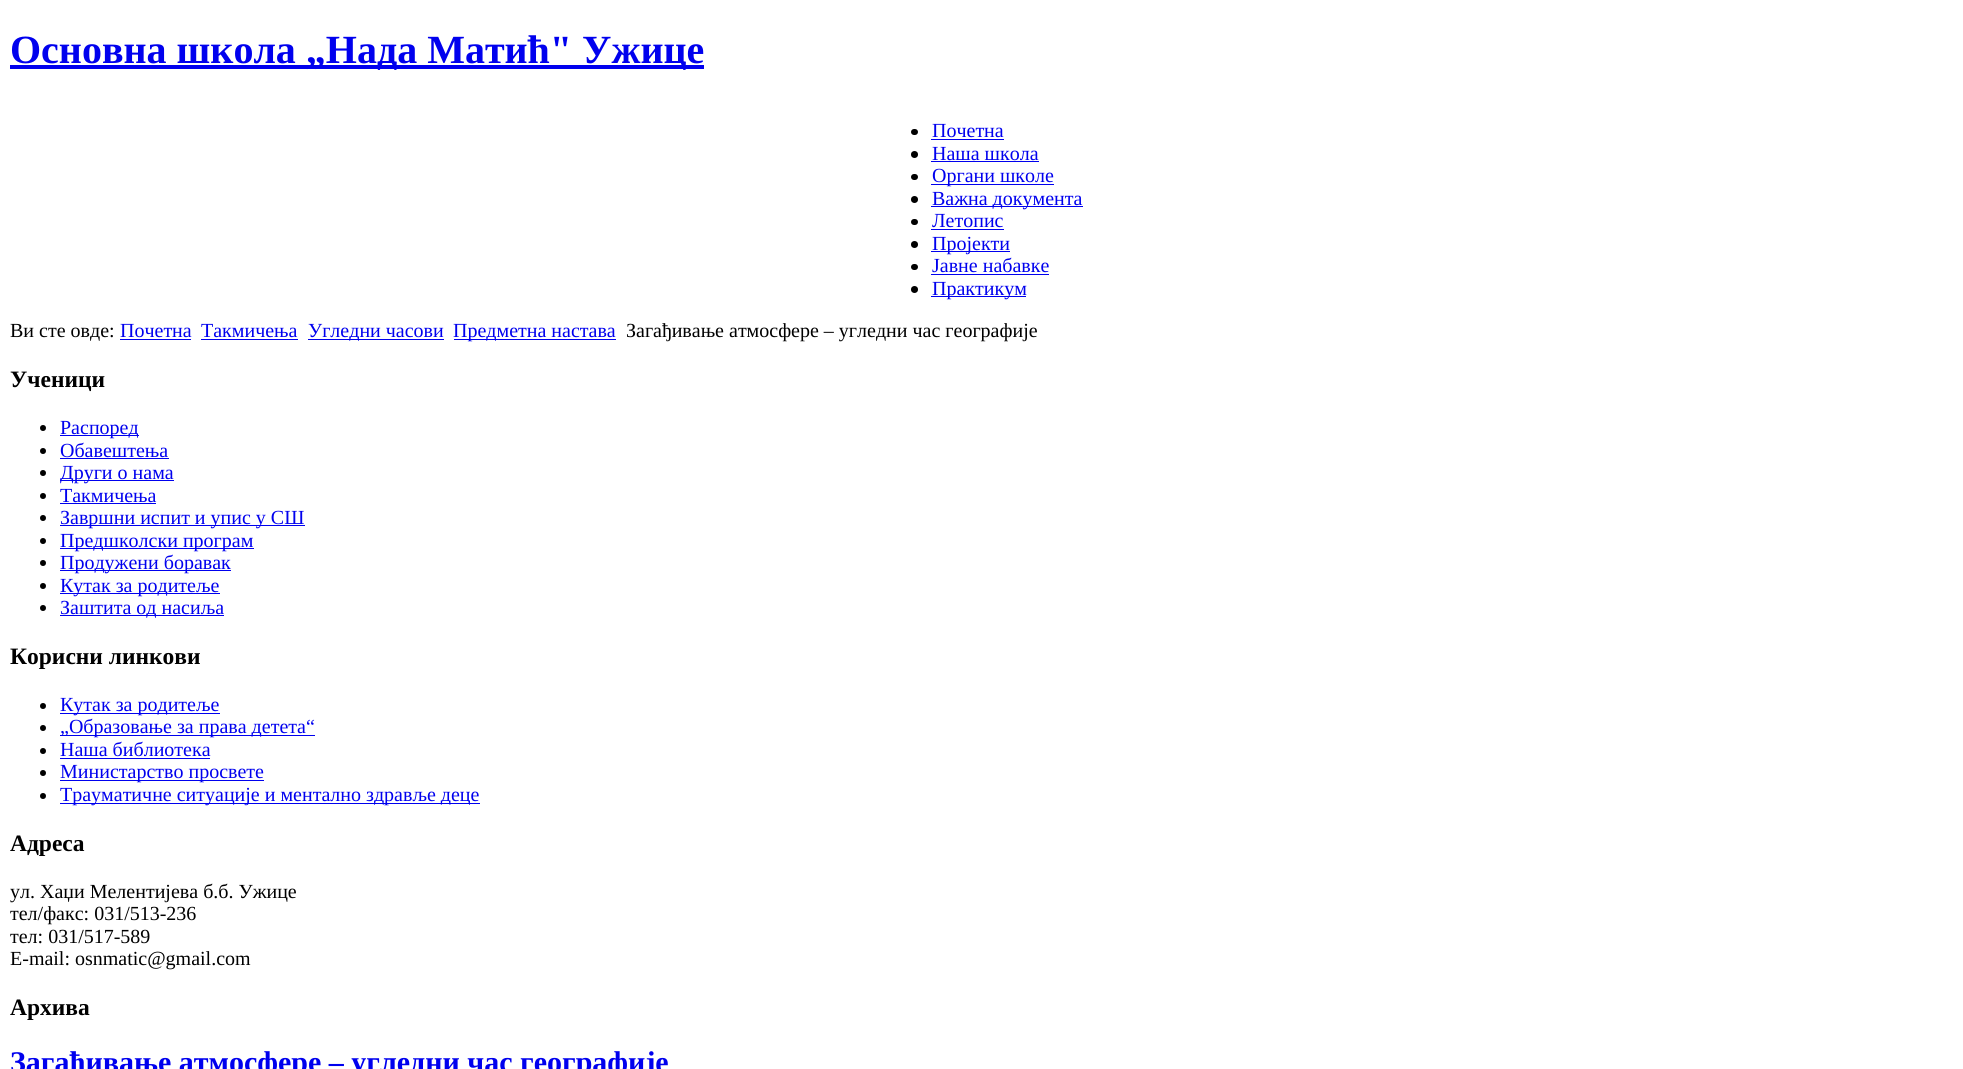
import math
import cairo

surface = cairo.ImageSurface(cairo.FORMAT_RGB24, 1963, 1069)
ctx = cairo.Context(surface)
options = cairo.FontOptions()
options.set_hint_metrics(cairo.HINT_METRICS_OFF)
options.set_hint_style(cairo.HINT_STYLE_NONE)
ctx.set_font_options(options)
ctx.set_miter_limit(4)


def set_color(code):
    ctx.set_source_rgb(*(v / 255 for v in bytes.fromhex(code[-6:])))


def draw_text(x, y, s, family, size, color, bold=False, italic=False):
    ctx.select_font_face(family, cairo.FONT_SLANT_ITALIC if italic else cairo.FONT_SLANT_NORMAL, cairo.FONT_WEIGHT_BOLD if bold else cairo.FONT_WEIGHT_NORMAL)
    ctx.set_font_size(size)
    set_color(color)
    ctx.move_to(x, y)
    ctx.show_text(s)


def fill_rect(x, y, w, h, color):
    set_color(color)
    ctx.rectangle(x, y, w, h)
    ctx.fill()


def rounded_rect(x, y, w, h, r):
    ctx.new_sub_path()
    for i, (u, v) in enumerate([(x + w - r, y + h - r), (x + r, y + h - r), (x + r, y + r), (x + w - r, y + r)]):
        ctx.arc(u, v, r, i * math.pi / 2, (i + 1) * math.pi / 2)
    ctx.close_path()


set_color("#ffffff")
ctx.paint()
fill_rect(10, 65, 694, 4, "#0000ee")
draw_text(10, 63, "Основна школа „Нада Матић\" Ужице", "Liberation Serif", 40, "#0000ee", bold=True)
set_color("#000000")
rounded_rect(911, 129, 7, 6, 3)
ctx.fill()
draw_text(932, 137, "Почетна", "Liberation Serif", 20, "#0000ee")
fill_rect(931, 139, 73, 1, "#0000ee")
set_color("#000000")
ctx.new_path()
ctx.arc(914.5, 154.5, 3.5, 0, 2 * math.pi)
ctx.fill()
draw_text(932, 160, "Наша школа", "Liberation Serif", 20, "#0000ee")
fill_rect(931, 161, 108, 1, "#0000ee")
set_color("#000000")
rounded_rect(911, 174, 7, 6, 3)
ctx.fill()
fill_rect(931, 184, 123, 1, "#0000ee")
draw_text(932, 182, "Органи школе", "Liberation Serif", 20, "#0000ee")
set_color("#000000")
ctx.new_path()
ctx.arc(914.5, 199.5, 3.5, 0, 2 * math.pi)
ctx.fill()
fill_rect(931, 206, 152, 1, "#0000ee")
draw_text(932, 205, "Важна документа", "Liberation Serif", 20, "#0000ee")
set_color("#000000")
rounded_rect(911, 219, 7, 6, 3)
ctx.fill()
draw_text(932, 227, "Летопис", "Liberation Serif", 20, "#0000ee")
fill_rect(931, 229, 73, 1, "#0000ee")
set_color("#000000")
ctx.new_path()
ctx.arc(914.5, 244.5, 3.5, 0, 2 * math.pi)
ctx.fill()
fill_rect(931, 251, 79, 1, "#0000ee")
draw_text(932, 250, "Пројекти", "Liberation Serif", 20, "#0000ee")
set_color("#000000")
rounded_rect(911, 264, 7, 6, 3)
ctx.fill()
draw_text(932, 272, "Јавне набавке", "Liberation Serif", 20, "#0000ee")
fill_rect(931, 274, 118, 1, "#0000ee")
set_color("#000000")
ctx.new_path()
ctx.arc(914.5, 289.5, 3.5, 0, 2 * math.pi)
ctx.fill()
fill_rect(931, 296, 95, 1, "#0000ee")
draw_text(932, 295, "Практикум", "Liberation Serif", 20, "#0000ee")
draw_text(10, 337, "Ви сте овде:", "Liberation Serif", 20, "#000000")
draw_text(120, 337, "Почетна", "Liberation Serif", 20, "#0000ee")
fill_rect(120, 339, 71, 1, "#0000ee")
draw_text(201, 337, "Такмичења", "Liberation Serif", 20, "#0000ee")
fill_rect(201, 339, 97, 1, "#0000ee")
fill_rect(308, 339, 136, 1, "#0000ee")
draw_text(308, 337, "Угледни часови", "Liberation Serif", 20, "#0000ee")
fill_rect(454, 339, 162, 1, "#0000ee")
draw_text(453, 337, "Предметна настава", "Liberation Serif", 20, "#0000ee")
draw_text(626, 337, "Загађивање атмосфере – угледни час географије", "Liberation Serif", 20, "#000000")
draw_text(10, 387, "Ученици", "Liberation Serif", 23.5, "#000000", bold=True)
ctx.new_path()
ctx.arc(43, 428, 3, 0, 2 * math.pi)
ctx.fill()
fill_rect(60, 435, 79, 1, "#0000ee")
draw_text(60, 434, "Распоред", "Liberation Serif", 20, "#0000ee")
set_color("#000000")
ctx.new_path()
ctx.arc(43, 451, 3, 0, 2 * math.pi)
ctx.fill()
draw_text(60, 457, "Обавештења", "Liberation Serif", 20, "#0000ee")
fill_rect(60, 458, 109, 1, "#0000ee")
set_color("#000000")
ctx.new_path()
ctx.arc(43, 473, 3, 0, 2 * math.pi)
ctx.fill()
fill_rect(60, 480, 114, 1, "#0000ee")
draw_text(60, 479, "Други о нама", "Liberation Serif", 20, "#0000ee")
set_color("#000000")
ctx.new_path()
ctx.arc(43, 496, 3, 0, 2 * math.pi)
ctx.fill()
draw_text(60, 502, "Такмичења", "Liberation Serif", 20, "#0000ee")
fill_rect(60, 503, 96, 1, "#0000ee")
set_color("#000000")
ctx.new_path()
ctx.arc(43, 518, 3, 0, 2 * math.pi)
ctx.fill()
fill_rect(60, 525, 245, 1, "#0000ee")
draw_text(60, 524, "Завршни испит и упис у СШ", "Liberation Serif", 20, "#0000ee")
set_color("#000000")
ctx.new_path()
ctx.arc(43, 541, 3, 0, 2 * math.pi)
ctx.fill()
fill_rect(60, 548, 194, 1, "#0000ee")
draw_text(60, 547, "Предшколски програм", "Liberation Serif", 20, "#0000ee")
set_color("#000000")
ctx.new_path()
ctx.arc(43, 563, 3, 0, 2 * math.pi)
ctx.fill()
fill_rect(60, 570, 171, 1, "#0000ee")
draw_text(60, 569, "Продужени боравак", "Liberation Serif", 20, "#0000ee")
set_color("#000000")
ctx.new_path()
ctx.arc(43, 586, 3, 0, 2 * math.pi)
ctx.fill()
fill_rect(60, 593, 160, 1, "#0000ee")
draw_text(60, 592, "Кутак за родитеље", "Liberation Serif", 20, "#0000ee")
set_color("#000000")
ctx.new_path()
ctx.arc(43, 608, 3, 0, 2 * math.pi)
ctx.fill()
fill_rect(60, 615, 164, 1, "#0000ee")
draw_text(60, 614, "Заштита од насиља", "Liberation Serif", 20, "#0000ee")
draw_text(10, 664, "Корисни линкови", "Liberation Serif", 23.5, "#000000", bold=True)
ctx.new_path()
ctx.arc(43, 706, 3, 0, 2 * math.pi)
ctx.fill()
fill_rect(60, 713, 160, 1, "#0000ee")
draw_text(60, 711, "Кутак за родитеље", "Liberation Serif", 20, "#0000ee")
set_color("#000000")
ctx.new_path()
ctx.arc(43, 728, 3, 0, 2 * math.pi)
ctx.fill()
fill_rect(60, 735, 255, 1, "#0000ee")
draw_text(60, 733, "„Образовање за права детета“", "Liberation Serif", 20, "#0000ee")
set_color("#000000")
ctx.new_path()
ctx.arc(43, 751, 3, 0, 2 * math.pi)
ctx.fill()
draw_text(60, 756, "Наша библиотека", "Liberation Serif", 20, "#0000ee")
fill_rect(60, 758, 150, 1, "#0000ee")
set_color("#000000")
ctx.new_path()
ctx.arc(43, 773, 3, 0, 2 * math.pi)
ctx.fill()
fill_rect(60, 780, 204, 1, "#0000ee")
draw_text(60, 778, "Министарство просвете", "Liberation Serif", 20, "#0000ee")
set_color("#000000")
ctx.new_path()
ctx.arc(43, 796, 3, 0, 2 * math.pi)
ctx.fill()
fill_rect(60, 803, 420, 1, "#0000ee")
draw_text(60, 801, "Трауматичне ситуације и ментално здравље деце", "Liberation Serif", 20, "#0000ee")
draw_text(10, 851, "Адреса", "Liberation Serif", 23.5, "#000000", bold=True)
draw_text(10, 898, "ул. Хаџи Мелентијева б.б. Ужице", "Liberation Serif", 20, "#000000")
draw_text(10, 920, "тел/факс: 031/513-236", "Liberation Serif", 20, "#000000")
draw_text(10, 943, "тел: 031/517-589", "Liberation Serif", 20, "#000000")
draw_text(10, 965, "E-mail: osnmatic@gmail.com", "Liberation Serif", 20, "#000000")
draw_text(10, 1015, "Архива", "Liberation Serif", 23.5, "#000000", bold=True)
draw_text(10, 1072, "Загађивање атмосфере – угледни час географије", "Liberation Serif", 30, "#0000ee", bold=True)
surface.write_to_png("output.png")
